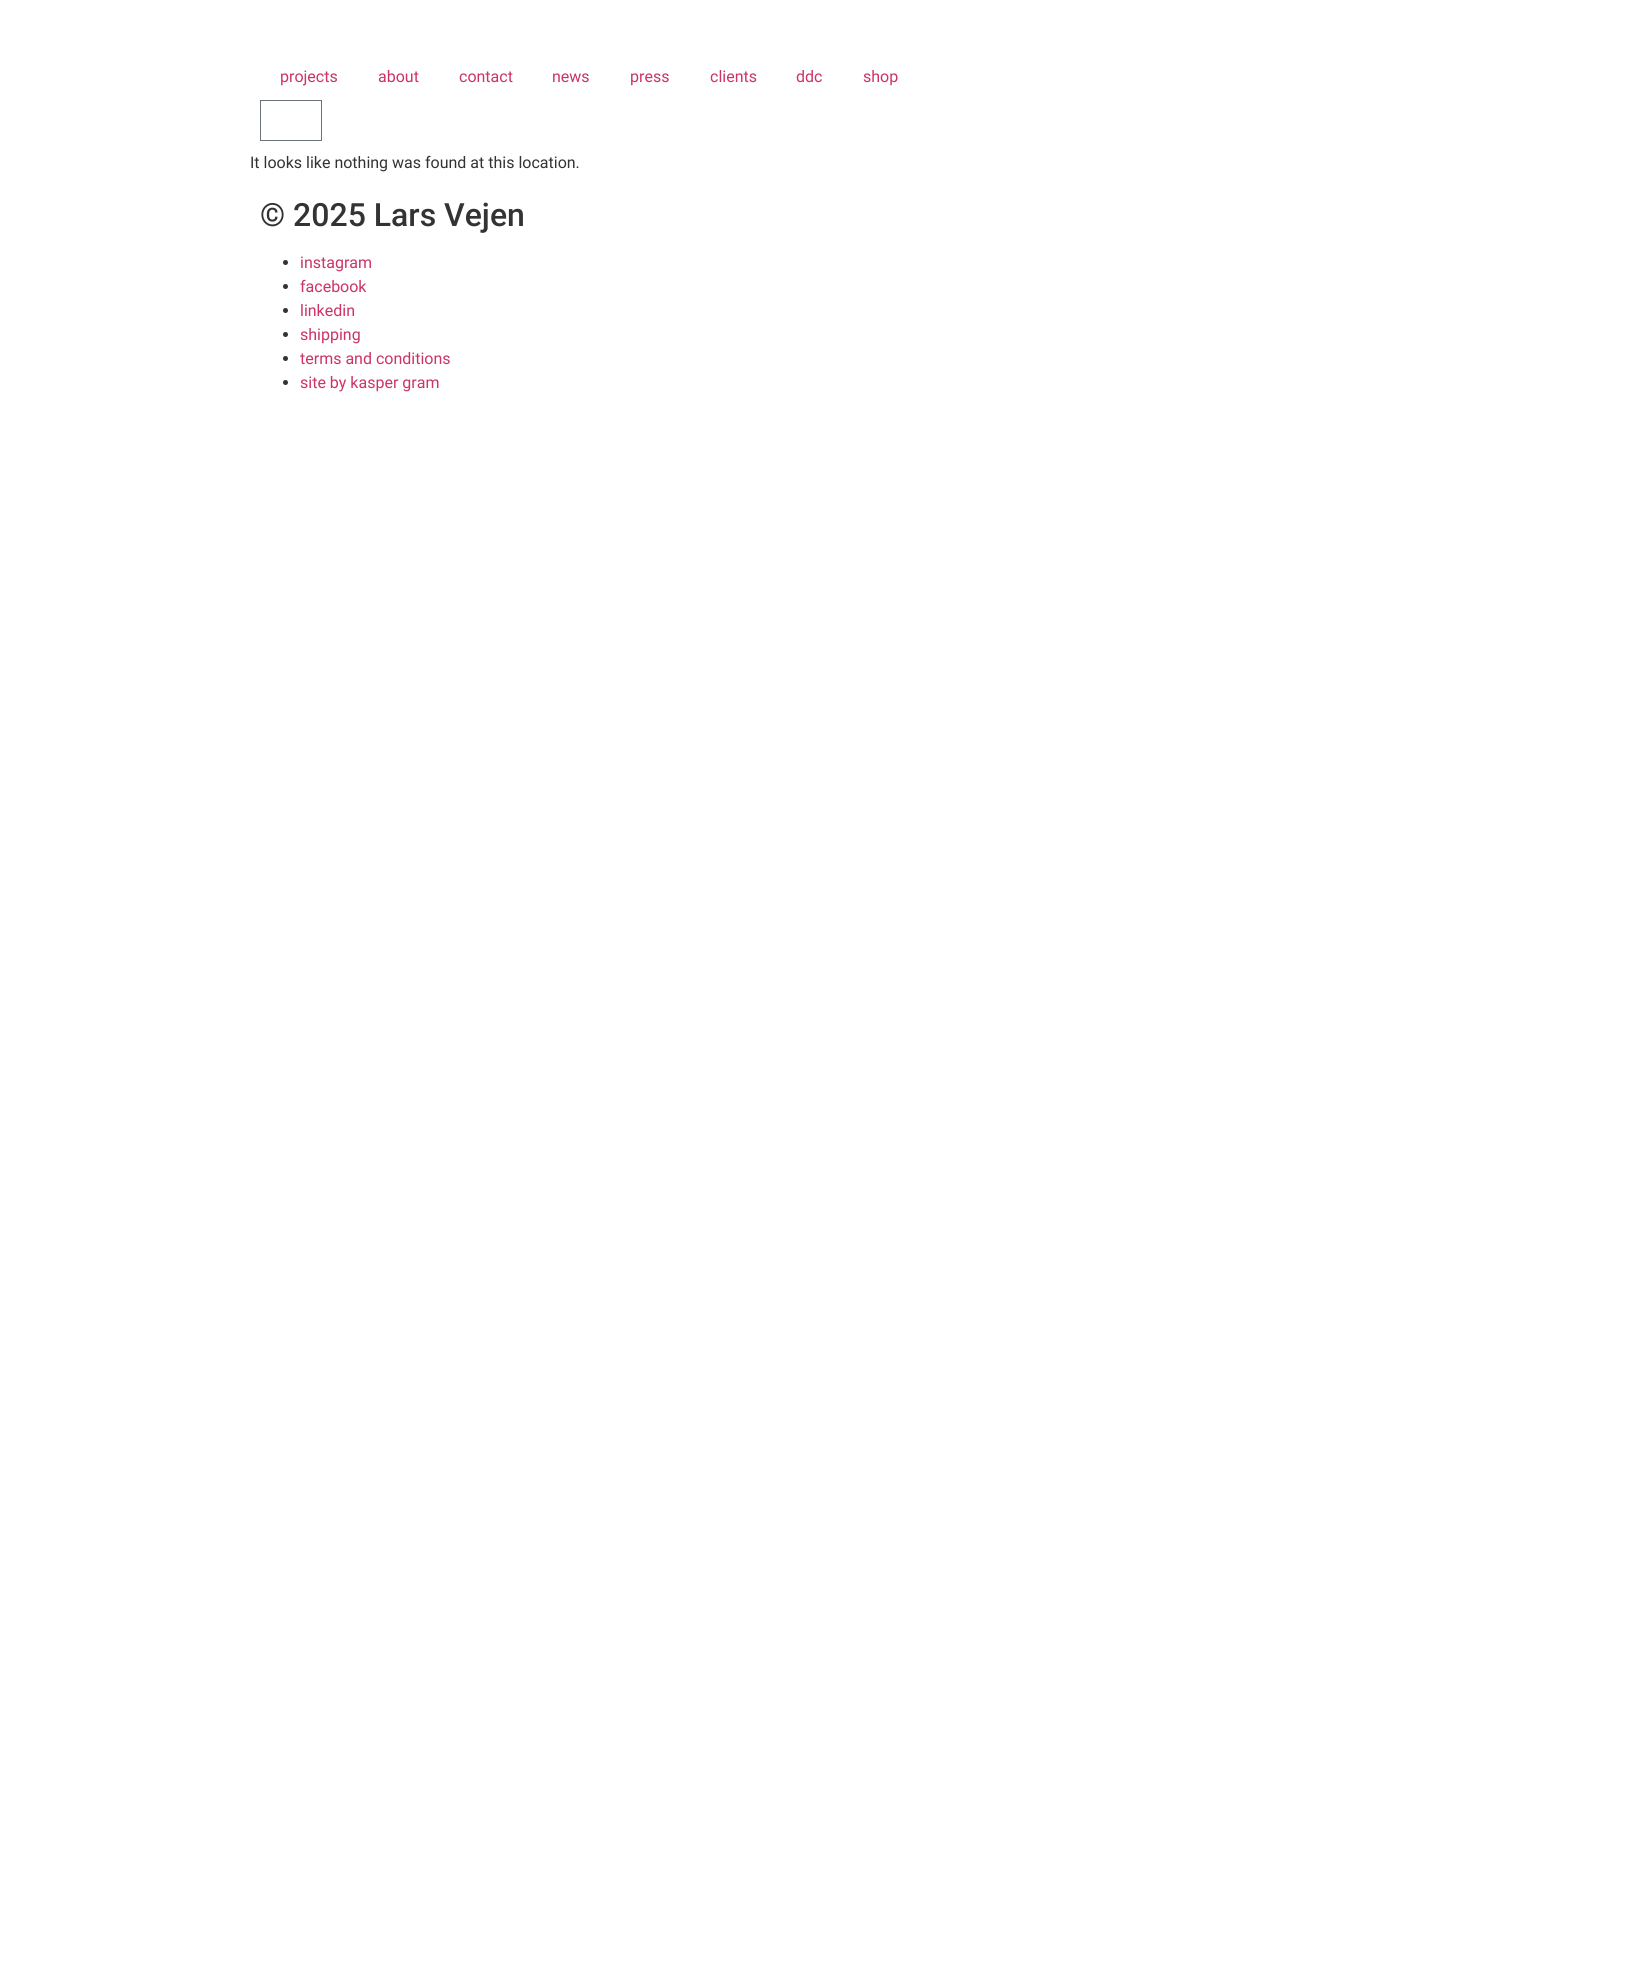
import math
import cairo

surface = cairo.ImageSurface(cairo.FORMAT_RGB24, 1640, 1976)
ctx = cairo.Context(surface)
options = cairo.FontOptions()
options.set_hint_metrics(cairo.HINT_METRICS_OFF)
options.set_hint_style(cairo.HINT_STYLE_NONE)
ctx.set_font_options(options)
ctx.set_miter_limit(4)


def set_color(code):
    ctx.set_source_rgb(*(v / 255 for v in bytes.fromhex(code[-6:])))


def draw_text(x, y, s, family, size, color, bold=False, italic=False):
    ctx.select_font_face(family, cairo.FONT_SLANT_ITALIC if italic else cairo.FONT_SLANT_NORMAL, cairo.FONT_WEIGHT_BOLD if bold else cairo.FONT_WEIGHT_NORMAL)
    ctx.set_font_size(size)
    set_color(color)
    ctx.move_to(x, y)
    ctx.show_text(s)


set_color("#ffffff")
ctx.paint()
draw_text(280, 82, "projects", "Roboto", 16, "#cc3366")
draw_text(378, 82, "about", "Roboto", 16, "#cc3366")
draw_text(459, 82, "contact", "Roboto", 16, "#cc3366")
draw_text(552, 82, "news", "Roboto", 16, "#cc3366")
draw_text(630, 82, "press", "Roboto", 16, "#cc3366")
draw_text(710, 82, "clients", "Roboto", 16, "#cc3366")
draw_text(796, 82, "ddc", "Roboto", 16, "#cc3366")
draw_text(863, 82, "shop", "Roboto", 16, "#cc3366")
ctx.rectangle(260.5, 100.5, 61, 40)
set_color("#69727d")
ctx.set_line_width(1)
ctx.stroke()
draw_text(250, 168, "It looks like nothing was found at this location.", "Roboto", 16, "#333333")
draw_text(260, 226, "© 2025 Lars Vejen", "Roboto Medium", 32, "#333333")
ctx.new_path()
ctx.arc(285.5, 262.5, 2.5, 0, 2 * math.pi)
ctx.fill()
draw_text(300, 268, "instagram", "Roboto", 16, "#cc3366")
set_color("#333333")
ctx.new_path()
ctx.arc(285.5, 286.5, 2.5, 0, 2 * math.pi)
ctx.fill()
draw_text(300, 292, "facebook", "Roboto", 16, "#cc3366")
set_color("#333333")
ctx.new_path()
ctx.arc(285.5, 310.5, 2.5, 0, 2 * math.pi)
ctx.fill()
draw_text(300, 316, "linkedin", "Roboto", 16, "#cc3366")
set_color("#333333")
ctx.new_path()
ctx.arc(285.5, 334.5, 2.5, 0, 2 * math.pi)
ctx.fill()
draw_text(300, 340, "shipping", "Roboto", 16, "#cc3366")
set_color("#333333")
ctx.new_path()
ctx.arc(285.5, 358.5, 2.5, 0, 2 * math.pi)
ctx.fill()
draw_text(300, 364, "terms and conditions", "Roboto", 16, "#cc3366")
set_color("#333333")
ctx.new_path()
ctx.arc(285.5, 382.5, 2.5, 0, 2 * math.pi)
ctx.fill()
draw_text(300, 388, "site by kasper gram", "Roboto", 16, "#cc3366")
surface.write_to_png("output.png")
